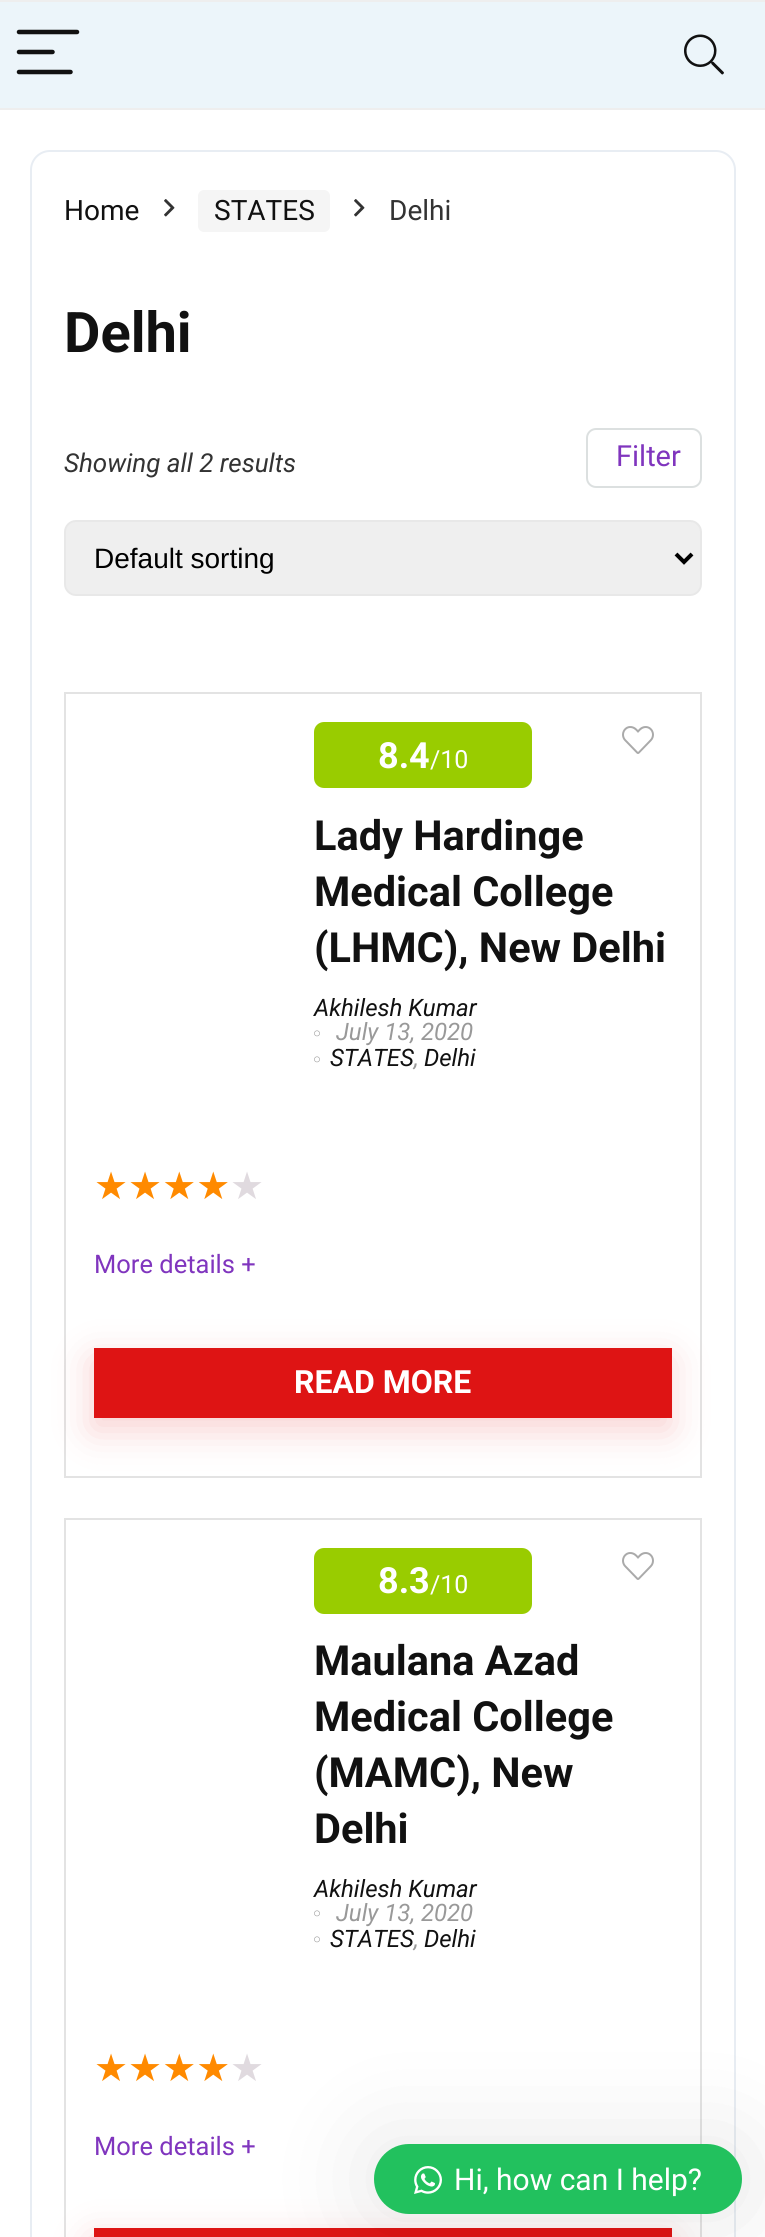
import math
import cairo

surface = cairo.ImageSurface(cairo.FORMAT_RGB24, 765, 2237)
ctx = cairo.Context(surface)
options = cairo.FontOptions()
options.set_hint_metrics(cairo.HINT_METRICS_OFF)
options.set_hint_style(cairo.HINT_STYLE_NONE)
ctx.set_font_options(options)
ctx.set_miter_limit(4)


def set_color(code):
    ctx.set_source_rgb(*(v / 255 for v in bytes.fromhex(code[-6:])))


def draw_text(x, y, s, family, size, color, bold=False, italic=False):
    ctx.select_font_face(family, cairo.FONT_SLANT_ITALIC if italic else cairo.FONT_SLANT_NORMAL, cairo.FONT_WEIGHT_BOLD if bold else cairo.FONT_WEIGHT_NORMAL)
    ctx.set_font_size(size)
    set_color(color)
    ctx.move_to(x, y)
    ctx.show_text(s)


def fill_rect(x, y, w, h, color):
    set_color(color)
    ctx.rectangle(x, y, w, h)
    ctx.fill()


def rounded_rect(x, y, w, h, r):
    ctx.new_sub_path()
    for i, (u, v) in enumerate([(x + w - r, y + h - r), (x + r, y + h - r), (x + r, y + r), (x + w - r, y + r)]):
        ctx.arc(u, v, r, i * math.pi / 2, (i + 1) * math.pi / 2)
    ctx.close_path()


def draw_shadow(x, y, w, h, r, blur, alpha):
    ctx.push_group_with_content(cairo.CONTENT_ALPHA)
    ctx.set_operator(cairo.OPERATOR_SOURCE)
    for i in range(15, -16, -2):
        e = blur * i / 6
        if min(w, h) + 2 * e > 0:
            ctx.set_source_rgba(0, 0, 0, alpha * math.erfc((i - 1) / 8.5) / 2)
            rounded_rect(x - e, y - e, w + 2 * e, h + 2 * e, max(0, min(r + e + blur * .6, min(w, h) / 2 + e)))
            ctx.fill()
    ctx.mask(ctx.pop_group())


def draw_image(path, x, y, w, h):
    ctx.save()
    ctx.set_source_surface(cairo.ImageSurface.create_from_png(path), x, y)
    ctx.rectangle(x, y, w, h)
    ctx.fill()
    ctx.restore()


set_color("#ffffff")
ctx.paint()
fill_rect(0, 2, 765, 106, "#ecf5fa")
fill_rect(0, 0, 765, 2, "#eeeeee")
fill_rect(0, 108, 765, 2, "#eeeeee")
ctx.new_path()
ctx.move_to(19, 32)
ctx.line_to(77, 32)
set_color("#111111")
ctx.set_line_width(4.5)
ctx.set_line_cap(cairo.LINE_CAP_ROUND)
ctx.stroke()
ctx.new_path()
ctx.move_to(19, 52)
ctx.line_to(52.5, 52)
ctx.move_to(19, 72)
ctx.line_to(70.5, 72)
ctx.stroke()
draw_image("assets/img1.png", 684, 34, 40, 41)
rounded_rect(31, 151, 704, 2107, 19)
set_color("#e8edf3")
ctx.set_line_width(2)
ctx.set_line_cap(cairo.LINE_CAP_BUTT)
ctx.stroke()
draw_text(64, 220, "Home", "Roboto", 28, "#111111")
draw_image("assets/img2.png", 164, 199, 11, 18)
set_color("#f5f5f5")
rounded_rect(198, 190, 132, 42, 6)
ctx.fill()
draw_text(214, 220, "STATES", "Roboto", 28, "#111111")
draw_image("assets/img2.png", 354, 199, 11, 18)
draw_text(389, 220, "Delhi", "Roboto", 28, "#333333")
draw_text(64, 352, "Delhi", "Roboto", 56, "#111111", bold=True)
draw_text(64, 472, "Showing all 2 results", "Roboto", 26, "#333333", italic=True)
rounded_rect(587, 429, 114, 58, 9)
set_color("#dce0e0")
ctx.stroke()
draw_text(616, 466, "Filter", "Roboto", 29, "#8035be")
set_color("#efefef")
rounded_rect(65, 521, 636, 74, 11)
ctx.fill_preserve()
set_color("#e8e8e8")
ctx.stroke()
ctx.new_path()
ctx.move_to(676, 554)
ctx.line_to(684, 562)
ctx.line_to(692, 554)
set_color("#000000")
ctx.set_line_width(4)
ctx.stroke()
draw_text(94, 568, "Default sorting", "Liberation Sans", 28, "#000000")
ctx.rectangle(65, 693, 636, 784)
set_color("#e3e3e3")
ctx.set_line_width(2)
ctx.stroke()
draw_image("assets/img3.png", 622, 726, 32, 28)
set_color("#99cc00")
rounded_rect(314, 722, 218, 66, 10)
ctx.fill()
draw_text(378, 768, "8.4", "Roboto", 36, "#ffffff", bold=True)
draw_text(430, 768, "/10", "Roboto", 25, "#ffffff")
draw_text(314, 850, "Lady Hardinge", "Roboto", 41.5, "#111111", bold=True)
draw_text(314, 906, "Medical College", "Roboto", 41.5, "#111111", bold=True)
draw_text(314, 962, "(LHMC), New Delhi", "Roboto", 41.5, "#111111", bold=True)
draw_text(314, 1016, "Akhilesh Kumar", "Roboto", 24, "#111111", italic=True)
draw_image("assets/img4.png", 314, 1030, 6, 7)
draw_text(336, 1040, "July 13, 2020", "Roboto", 24, "#999999", italic=True)
draw_image("assets/img4.png", 314, 1056, 6, 7)
draw_text(330, 1066, "STATES", "Roboto", 24, "#111111", italic=True)
draw_text(424, 1066, "Delhi", "Roboto", 24, "#111111", italic=True)
draw_text(414, 1066, ",", "Roboto", 24, "#999999", italic=True)
draw_text(94, 1199, "★★★★", "DejaVu Sans", 38, "#ff8a00")
draw_text(230, 1199, "★", "DejaVu Sans", 38, "#e0dadf")
draw_text(94, 1273, "More details +", "Roboto", 25.5, "#8035be")
set_color("#de1414")
draw_shadow(92, 1360, 578, 70, 0, 19, 0.2)
fill_rect(94, 1348, 578, 70, "#de1414")
draw_text(294, 1393, "READ MORE", "Roboto", 32, "#ffffff", bold=True)
ctx.rectangle(65, 1519, 636, 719)
set_color("#e3e3e3")
ctx.stroke()
set_color("#99cc00")
rounded_rect(314, 1548, 218, 66, 10)
ctx.fill()
draw_text(378, 1593, "8.3", "Roboto", 36, "#ffffff", bold=True)
draw_text(430, 1593, "/10", "Roboto", 25, "#ffffff")
draw_text(314, 1675, "Maulana Azad", "Roboto", 41.5, "#111111", bold=True)
draw_text(314, 1731, "Medical College", "Roboto", 41.5, "#111111", bold=True)
draw_text(314, 1787, "(MAMC), New", "Roboto", 41.5, "#111111", bold=True)
draw_text(314, 1843, "Delhi", "Roboto", 41.5, "#111111", bold=True)
draw_text(314, 1897, "Akhilesh Kumar", "Roboto", 24, "#111111", italic=True)
draw_image("assets/img4.png", 314, 1910, 6, 7)
draw_text(336, 1921, "July 13, 2020", "Roboto", 24, "#999999", italic=True)
draw_image("assets/img4.png", 314, 1936, 6, 7)
draw_text(330, 1947, "STATES", "Roboto", 24, "#111111", italic=True)
draw_text(424, 1947, "Delhi", "Roboto", 24, "#111111", italic=True)
draw_text(414, 1947, ",", "Roboto", 24, "#999999", italic=True)
draw_text(94, 2081, "★★★★", "DejaVu Sans", 38, "#ff8a00")
draw_text(230, 2081, "★", "DejaVu Sans", 38, "#e0dadf")
draw_text(94, 2155, "More details +", "Roboto", 25.5, "#8035be")
set_color("#de1414")
draw_shadow(92, 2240, 578, 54, 0, 19, 0.2)
fill_rect(94, 2228, 578, 9, "#de1414")
draw_image("assets/img3.png", 622, 1552, 32, 28)
set_color("#000000")
draw_shadow(374, 2144, 368, 70, 35, 50, 0.1)
set_color("#22c15e")
rounded_rect(374, 2144, 368, 70, 35)
ctx.fill()
draw_image("assets/img5.png", 414, 2166, 28, 28)
draw_text(454, 2190, "Hi, how can I help?", "Roboto", 30, "#ffffff")
surface.write_to_png("output.png")
